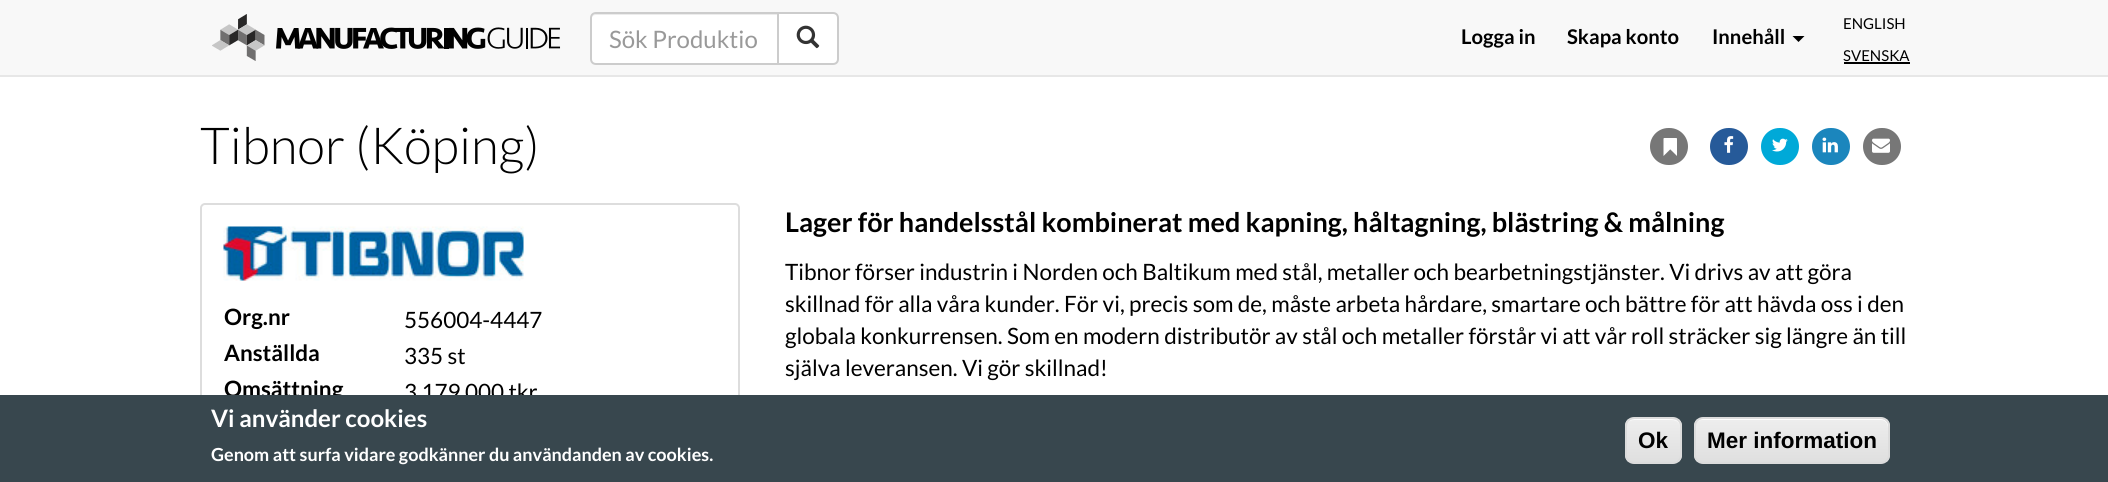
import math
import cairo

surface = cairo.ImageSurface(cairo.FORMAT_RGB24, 2108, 482)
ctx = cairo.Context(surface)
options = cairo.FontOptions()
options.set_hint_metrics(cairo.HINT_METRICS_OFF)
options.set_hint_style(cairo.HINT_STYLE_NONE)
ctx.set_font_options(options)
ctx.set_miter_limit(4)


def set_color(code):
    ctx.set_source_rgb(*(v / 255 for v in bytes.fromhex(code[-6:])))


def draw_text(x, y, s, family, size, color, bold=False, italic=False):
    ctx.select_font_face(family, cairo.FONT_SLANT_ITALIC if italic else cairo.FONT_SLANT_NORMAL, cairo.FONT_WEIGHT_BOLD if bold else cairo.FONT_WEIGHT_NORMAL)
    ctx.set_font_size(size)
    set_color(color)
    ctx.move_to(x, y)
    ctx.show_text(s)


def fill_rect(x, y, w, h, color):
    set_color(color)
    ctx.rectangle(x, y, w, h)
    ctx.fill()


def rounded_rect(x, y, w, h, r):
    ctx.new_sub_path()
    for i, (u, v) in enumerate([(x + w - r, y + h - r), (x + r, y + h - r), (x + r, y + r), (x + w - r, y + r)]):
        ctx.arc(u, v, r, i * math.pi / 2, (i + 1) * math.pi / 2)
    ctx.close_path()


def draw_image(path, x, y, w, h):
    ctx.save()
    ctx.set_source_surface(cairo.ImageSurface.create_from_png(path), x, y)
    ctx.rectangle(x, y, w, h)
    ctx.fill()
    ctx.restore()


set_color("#ffffff")
ctx.paint()
fill_rect(0, 0, 2108, 75, "#f8f8f8")
fill_rect(0, 75, 2108, 2, "#e7e7e7")
draw_image("assets/img1.png", 212, 14, 349, 47)
set_color("#ffffff")
ctx.new_path()
ctx.move_to(596, 12)
ctx.line_to(779, 12)
ctx.line_to(779, 65)
ctx.line_to(596, 65)
ctx.curve_to(592.5, 65, 590, 62.5, 590, 59)
ctx.line_to(590, 18)
ctx.curve_to(590, 14.5, 592.5, 12, 596, 12)
ctx.close_path()
ctx.fill()
set_color("#ececec")
ctx.new_path()
ctx.move_to(596, 15)
ctx.line_to(777, 15)
ctx.line_to(777, 14)
ctx.line_to(596, 14)
ctx.curve_to(593, 14, 591, 17, 591, 20)
ctx.curve_to(591, 17, 593, 15, 596, 15)
ctx.close_path()
ctx.fill()
ctx.new_path()
ctx.move_to(596, 13)
ctx.line_to(778, 13)
ctx.line_to(778, 64)
ctx.line_to(596, 64)
ctx.curve_to(593, 64, 591, 62, 591, 59)
ctx.line_to(591, 18)
ctx.curve_to(591, 15, 593, 13, 596, 13)
ctx.close_path()
set_color("#cccccc")
ctx.stroke()
draw_text(609, 48, "Sök Produktio", "Lato", 24, "#999999")
set_color("#ffffff")
ctx.new_path()
ctx.move_to(778, 13)
ctx.line_to(833, 13)
ctx.curve_to(836, 13, 838, 15, 838, 18)
ctx.line_to(838, 59)
ctx.curve_to(838, 62, 836, 64, 833, 64)
ctx.line_to(778, 64)
ctx.close_path()
ctx.fill_preserve()
set_color("#cccccc")
ctx.stroke()
draw_image("assets/img2.png", 796, 25, 24, 24)
draw_text(1461, 44, "Logga in", "Lato", 20.25, "#000000", bold=True)
draw_text(1567, 44, "Skapa konto", "Lato", 20.25, "#000000", bold=True)
draw_text(1712, 44, "Innehåll", "Lato", 20.25, "#000000", bold=True)
ctx.new_path()
ctx.move_to(1792.5, 36)
ctx.line_to(1804.5, 36)
ctx.line_to(1798.5, 42)
ctx.close_path()
ctx.fill()
draw_text(1843, 29, "ENGLISH", "Lato", 15, "#000000")
draw_text(1843, 61, "SVENSKA", "Lato", 15, "#000000")
fill_rect(1844, 62, 66, 2, "#000000")
draw_text(200, 164, "Tibnor (Köping)", "Lato Light", 51, "#000000")
set_color("#777777")
rounded_rect(1650, 128, 38, 37, 18.5)
ctx.fill()
draw_image("assets/img3.png", 1663, 138, 14, 18)
set_color("#265a99")
rounded_rect(1710, 128, 38, 37, 18.5)
ctx.fill()
draw_image("assets/img4.png", 1724, 136, 10, 17)
set_color("#00a9d8")
rounded_rect(1761, 128, 38, 37, 18.5)
ctx.fill()
draw_image("assets/img5.png", 1772, 138, 16, 14)
set_color("#1b86bd")
rounded_rect(1812, 128, 38, 37, 18.5)
ctx.fill()
draw_image("assets/img6.png", 1822, 137, 16, 16)
set_color("#777777")
rounded_rect(1863, 128, 38, 37, 18.5)
ctx.fill()
draw_image("assets/img7.png", 1872, 138, 18, 15)
rounded_rect(201, 204, 538, 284, 4)
set_color("#dddddd")
ctx.stroke()
draw_image("assets/img8.png", 223, 226, 301, 55)
draw_text(224, 325, "Org.nr", "Lato", 22.5, "#000000", bold=True)
draw_text(404, 328, "556004-4447", "Lato", 22.5, "#000000")
draw_text(224, 361, "Anställda", "Lato", 22.5, "#000000", bold=True)
draw_text(404, 364, "335 st", "Lato", 22.5, "#000000")
draw_text(224, 397, "Omsättning", "Lato", 22.5, "#000000", bold=True)
draw_text(404, 400, "3 179 000 tkr", "Lato", 22.5, "#000000")
draw_text(785, 232, "Lager för handelsstål kombinerat med kapning, håltagning, blästring & målning", "Lato", 27, "#000000", bold=True)
draw_text(785, 280, "Tibnor förser industrin i Norden och Baltikum med stål, metaller och bearbetningstjänster. Vi drivs av att göra", "Lato", 22.5, "#000000")
draw_text(785, 312, "skillnad för alla våra kunder. För vi, precis som de, måste arbeta hårdare, smartare och bättre för att hävda oss i den", "Lato", 22.5, "#000000")
draw_text(785, 344, "globala konkurrensen. Som en modern distributör av stål och metaller förstår vi att vår roll sträcker sig längre än till", "Lato", 22.5, "#000000")
draw_text(785, 376, "själva leveransen. Vi gör skillnad!", "Lato", 22.5, "#000000")
fill_rect(0, 395, 2108, 87, "#38474e")
draw_text(211, 427, "Vi använder cookies", "Lato", 24, "#ffffff", bold=True)
draw_text(211, 461, "Genom att surfa vidare godkänner du användanden av cookies.", "Lato", 18, "#ffffff", bold=True)
ctx.save()
rounded_rect(1625, 417, 57, 47, 9)
ctx.clip()
gradient = cairo.LinearGradient(1626, 419, 1626, 462)
gradient.add_color_stop_rgba(0.05, 0.929, 0.929, 0.929, 1)
gradient.add_color_stop_rgba(1, 0.875, 0.875, 0.875, 1)
ctx.set_source(gradient)
ctx.rectangle(1625, 419, 57, 43)
ctx.fill()
ctx.restore()
ctx.new_path()
ctx.move_to(1634, 420)
ctx.line_to(1672, 420)
ctx.curve_to(1677, 420, 1680, 423, 1680, 428)
ctx.curve_to(1680, 419, 1673, 419, 1666, 419)
ctx.line_to(1640, 419)
ctx.curve_to(1633, 419, 1626, 419, 1626, 428)
ctx.curve_to(1626, 423, 1629, 420, 1634, 420)
ctx.close_path()
ctx.fill()
rounded_rect(1626, 418, 55, 45, 8)
set_color("#dcdcdc")
ctx.stroke()
draw_text(1638, 448, "Ok", "Liberation Sans", 22.5, "#000000", bold=True)
ctx.save()
rounded_rect(1694, 417, 196, 47, 9)
ctx.clip()
gradient = cairo.LinearGradient(1695, 419, 1695, 462)
gradient.add_color_stop_rgba(0.05, 0.929, 0.929, 0.929, 1)
gradient.add_color_stop_rgba(1, 0.875, 0.875, 0.875, 1)
ctx.set_source(gradient)
ctx.rectangle(1694, 419, 196, 43)
ctx.fill()
ctx.restore()
set_color("#ffffff")
ctx.new_path()
ctx.move_to(1702, 420)
ctx.line_to(1881, 420)
ctx.curve_to(1890, 420, 1888, 432, 1888, 437)
ctx.line_to(1888, 458)
ctx.curve_to(1888, 457, 1889, 456, 1889, 454)
ctx.line_to(1889, 427)
ctx.curve_to(1889, 423, 1885, 419, 1881, 419)
ctx.line_to(1703, 419)
ctx.curve_to(1699, 419, 1695, 423, 1695, 427)
ctx.line_to(1695, 428)
ctx.curve_to(1695, 423, 1698, 420, 1702, 420)
ctx.close_path()
ctx.fill()
rounded_rect(1695, 418, 194, 45, 8)
set_color("#dcdcdc")
ctx.stroke()
draw_text(1707, 448, "Mer information", "Liberation Sans", 22.5, "#000000", bold=True)
surface.write_to_png("output.png")
